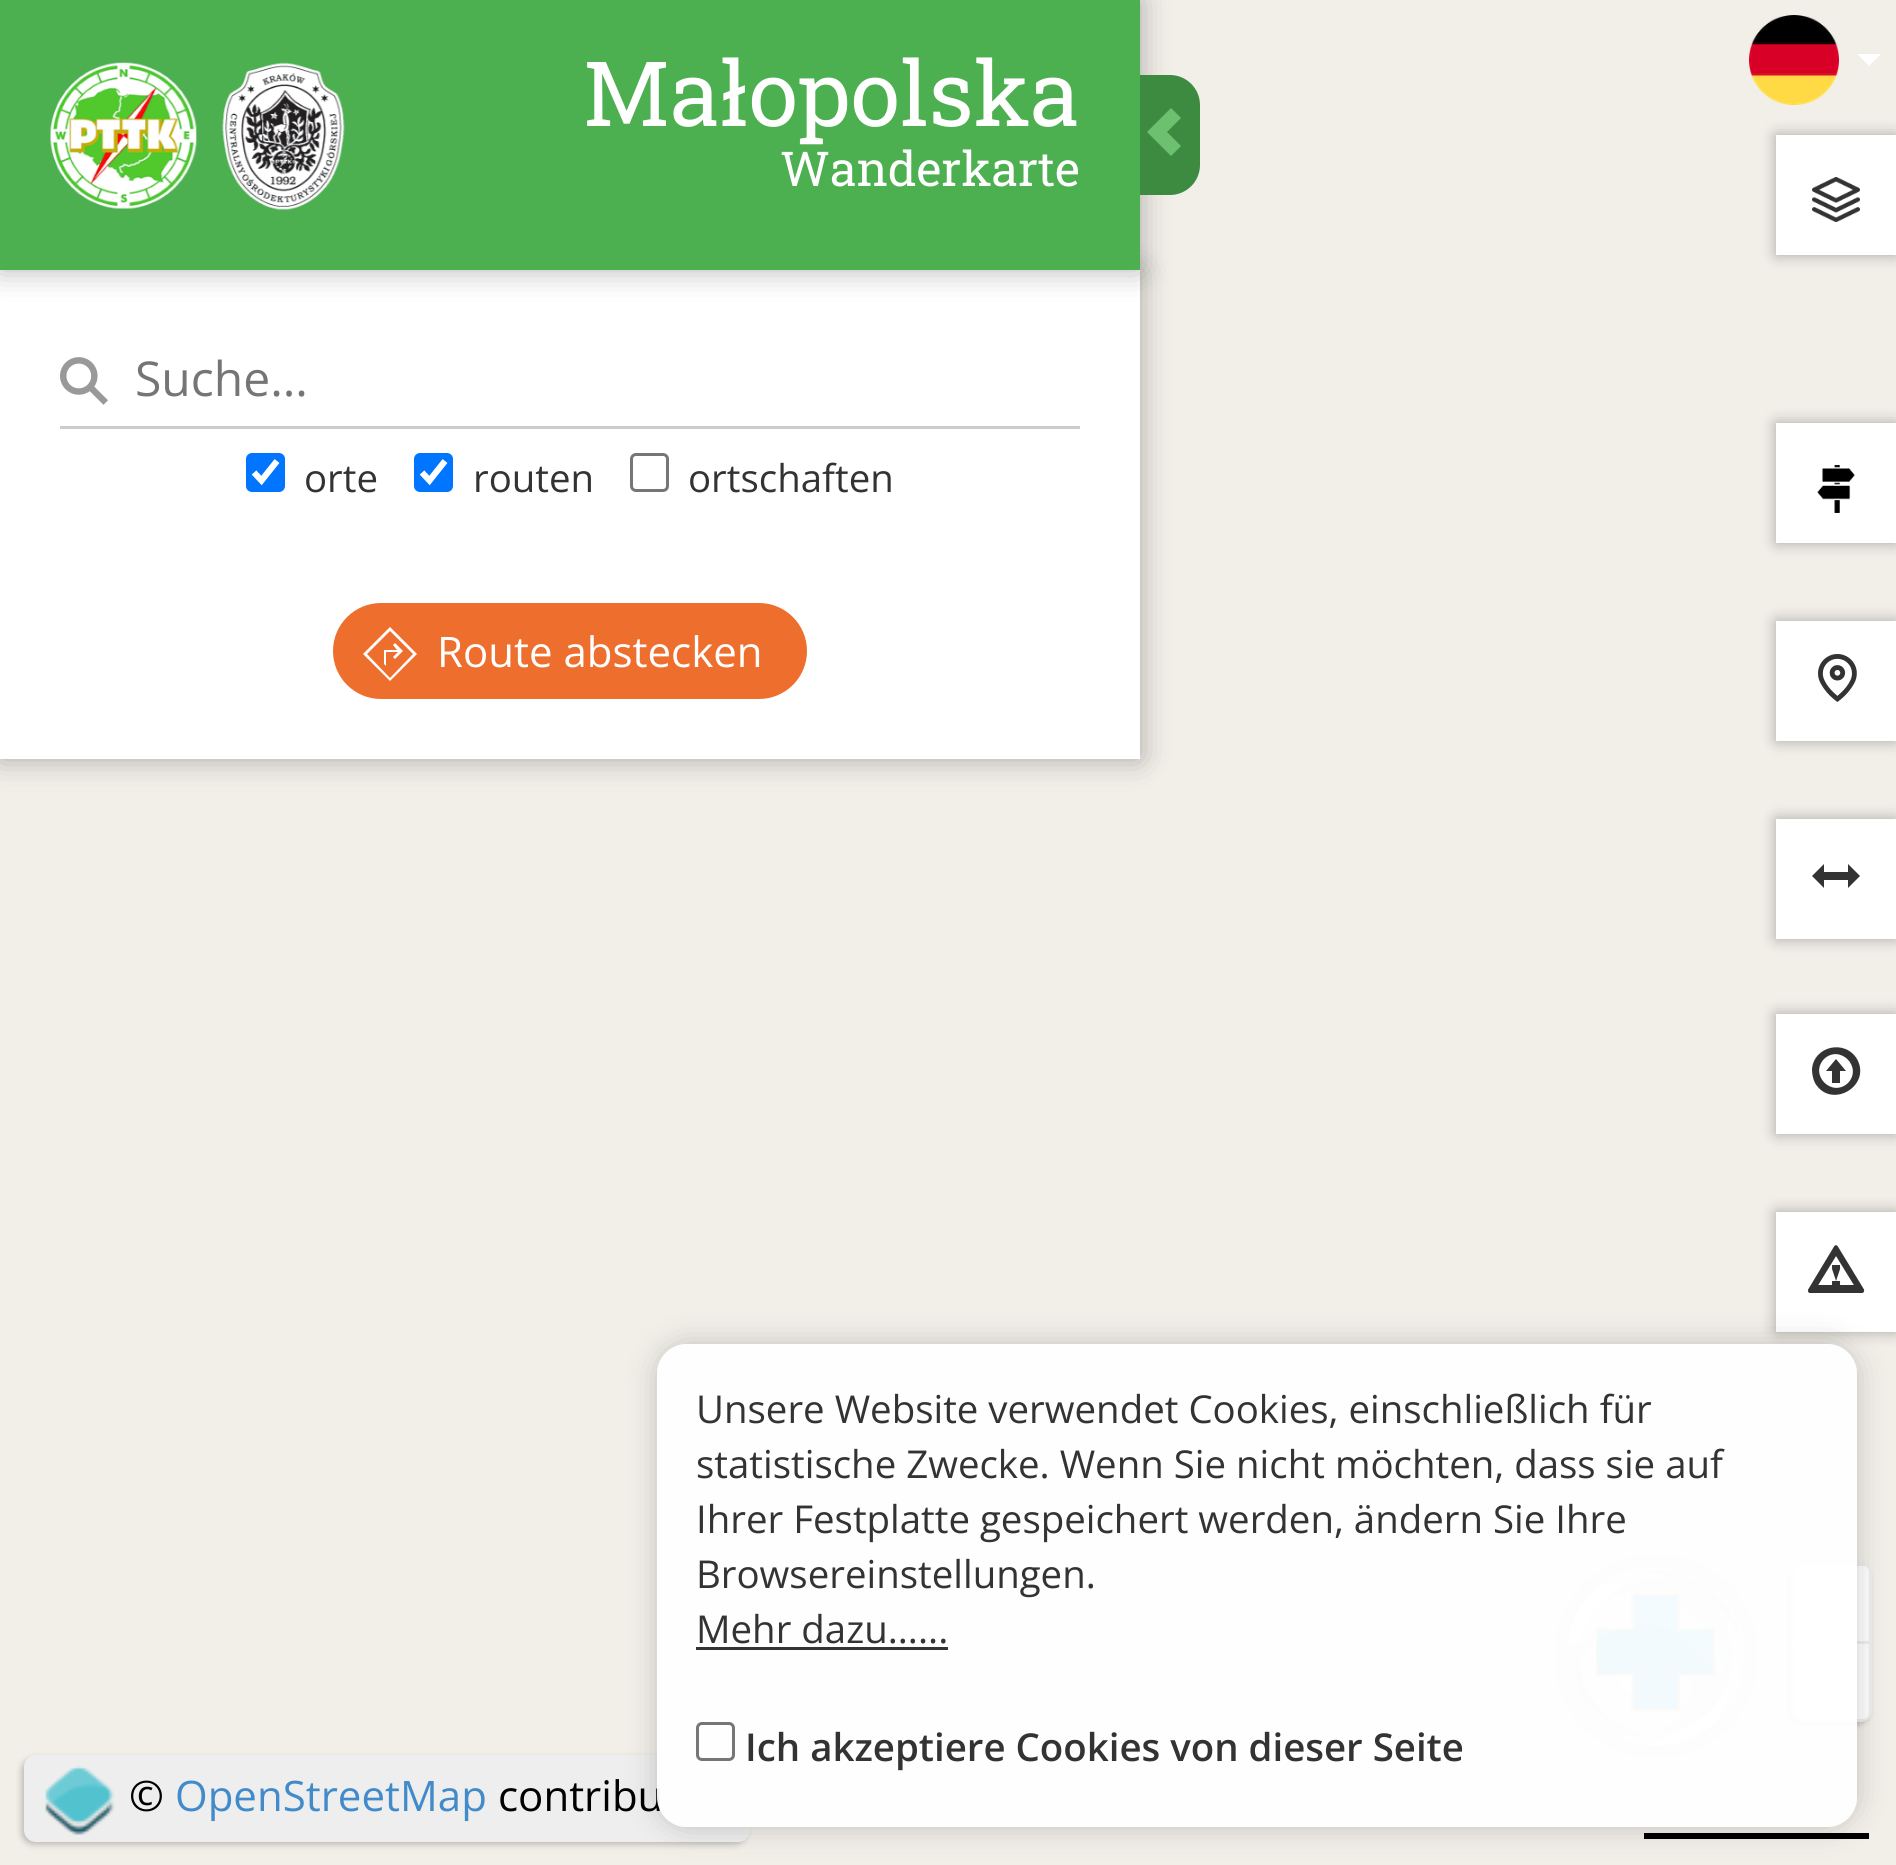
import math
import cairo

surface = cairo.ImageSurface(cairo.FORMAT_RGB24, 1896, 1865)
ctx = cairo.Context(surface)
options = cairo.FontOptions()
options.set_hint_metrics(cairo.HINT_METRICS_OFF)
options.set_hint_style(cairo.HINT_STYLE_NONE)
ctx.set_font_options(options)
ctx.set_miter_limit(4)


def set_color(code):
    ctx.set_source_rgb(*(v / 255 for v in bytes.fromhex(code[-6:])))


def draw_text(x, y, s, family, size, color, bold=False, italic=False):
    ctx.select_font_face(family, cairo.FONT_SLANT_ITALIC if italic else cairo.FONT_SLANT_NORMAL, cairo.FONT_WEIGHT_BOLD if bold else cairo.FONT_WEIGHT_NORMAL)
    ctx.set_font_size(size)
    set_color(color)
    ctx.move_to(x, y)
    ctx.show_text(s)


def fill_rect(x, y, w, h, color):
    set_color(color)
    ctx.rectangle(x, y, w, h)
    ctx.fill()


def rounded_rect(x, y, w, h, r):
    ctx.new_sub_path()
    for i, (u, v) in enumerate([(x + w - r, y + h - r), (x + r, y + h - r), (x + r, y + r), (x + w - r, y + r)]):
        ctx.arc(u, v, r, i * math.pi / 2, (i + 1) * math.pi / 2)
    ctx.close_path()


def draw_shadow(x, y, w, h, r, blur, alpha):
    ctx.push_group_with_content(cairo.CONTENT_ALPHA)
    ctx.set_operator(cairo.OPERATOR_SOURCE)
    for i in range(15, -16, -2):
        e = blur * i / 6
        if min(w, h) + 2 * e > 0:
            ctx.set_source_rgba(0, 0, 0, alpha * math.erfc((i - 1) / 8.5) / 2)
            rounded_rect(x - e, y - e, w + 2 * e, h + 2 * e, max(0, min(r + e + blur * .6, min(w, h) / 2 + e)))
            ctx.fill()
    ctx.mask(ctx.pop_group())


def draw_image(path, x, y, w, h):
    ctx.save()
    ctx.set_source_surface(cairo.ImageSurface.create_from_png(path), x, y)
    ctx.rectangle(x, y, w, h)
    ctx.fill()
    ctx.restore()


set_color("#f2efe9")
ctx.paint()
set_color("#000000")
draw_shadow(0, 270, 1140, 489, 0, 15, 0.3)
fill_rect(0, 270, 1140, 489, "#ffffff")
set_color("#000000")
draw_shadow(0, 0, 1140, 270, 0, 15, 0.3)
fill_rect(0, 0, 1140, 270, "#4caf50")
draw_image("assets/img1.png", 50, 62, 295, 148)
draw_text(583, 126, "Małopolska", "Roboto Slab", 90, "#ffffff")
draw_text(780, 186, "Wanderkarte", "Roboto Slab", 48, "#ffffff")
set_color("#3d8b40")
ctx.new_path()
ctx.move_to(1140, 75)
ctx.line_to(1170, 75)
ctx.curve_to(1186.5, 75, 1200, 88.5, 1200, 105)
ctx.line_to(1200, 165)
ctx.curve_to(1200, 181.5, 1186.5, 195, 1170, 195)
ctx.line_to(1140, 195)
ctx.close_path()
ctx.fill()
set_color("#6ec071")
ctx.new_path()
ctx.move_to(1147, 132)
ctx.line_to(1171, 156)
ctx.line_to(1181, 146)
ctx.line_to(1167, 132)
ctx.line_to(1181, 118)
ctx.line_to(1171, 108)
ctx.close_path()
ctx.fill()
draw_image("assets/img2.png", 60, 357, 48, 48)
fill_rect(60, 426, 1020, 3, "#cccccc")
draw_text(135, 396, "Suche...", "Open Sans", 48, "#757575")
set_color("#0075ff")
rounded_rect(246, 453, 39, 39, 6)
ctx.fill()
ctx.new_path()
ctx.move_to(254, 472.5)
ctx.line_to(261.5, 480.5)
ctx.line_to(277, 461)
set_color("#ffffff")
ctx.set_line_width(6.2)
ctx.stroke()
draw_text(304, 492, "orte", "Open Sans", 38.4, "#333333")
set_color("#0075ff")
rounded_rect(414, 453, 39, 39, 6)
ctx.fill()
ctx.new_path()
ctx.move_to(422, 472.5)
ctx.line_to(429.5, 480.5)
ctx.line_to(445, 461)
set_color("#ffffff")
ctx.stroke()
draw_text(473, 492, "routen", "Open Sans", 38.4, "#333333")
rounded_rect(631.5, 454.5, 36, 36, 4.5)
set_color("#767676")
ctx.set_line_width(3)
ctx.stroke()
draw_text(688, 492, "ortschaften", "Open Sans", 38.4, "#333333")
set_color("#ee6e2d")
rounded_rect(333, 603, 474, 96, 48)
ctx.fill()
set_color("#ffffff")
ctx.new_path()
ctx.move_to(390, 631)
ctx.line_to(413, 654)
ctx.line_to(390, 678)
ctx.line_to(367, 654)
ctx.close_path()
ctx.move_to(390, 627)
ctx.line_to(363, 654)
ctx.line_to(390, 681)
ctx.line_to(417, 654)
ctx.close_path()
ctx.move_to(395, 643)
ctx.line_to(393, 645)
ctx.line_to(397, 650)
ctx.line_to(384, 650)
ctx.line_to(384, 664)
ctx.line_to(386, 666)
ctx.line_to(386, 652)
ctx.line_to(398, 652)
ctx.line_to(393, 657)
ctx.line_to(395, 659)
ctx.line_to(403, 651)
ctx.close_path()
ctx.fill()
draw_text(437, 667, "Route abstecken", "Open Sans", 42, "#ffffff")
draw_image("assets/img3.png", 1749, 15, 90, 90)
ctx.new_path()
ctx.move_to(1857, 54)
ctx.line_to(1881, 54)
ctx.line_to(1869, 66)
ctx.close_path()
ctx.fill()
set_color("#000000")
draw_shadow(1776, 135, 120, 120, 0, 7.5, 0.3)
fill_rect(1776, 135, 120, 120, "#ffffff")
draw_image("assets/img4.png", 1812, 177, 48, 45)
set_color("#000000")
draw_shadow(1776, 423, 120, 120, 0, 7.5, 0.3)
fill_rect(1776, 423, 120, 120, "#ffffff")
draw_image("assets/img5.png", 1817, 465, 38, 48)
set_color("#000000")
draw_shadow(1776, 621, 120, 120, 0, 7.5, 0.3)
fill_rect(1776, 621, 120, 120, "#ffffff")
draw_image("assets/img6.png", 1818, 654, 39, 48)
set_color("#000000")
draw_shadow(1776, 819, 120, 120, 0, 7.5, 0.3)
fill_rect(1776, 819, 120, 120, "#ffffff")
set_color("#333333")
ctx.new_path()
ctx.move_to(1812, 876)
ctx.line_to(1824, 864)
ctx.line_to(1824, 872)
ctx.line_to(1848, 872)
ctx.line_to(1848, 864)
ctx.line_to(1860, 876)
ctx.line_to(1848, 888)
ctx.line_to(1848, 880)
ctx.line_to(1824, 880)
ctx.line_to(1824, 888)
ctx.close_path()
ctx.fill()
set_color("#000000")
draw_shadow(1776, 1014, 120, 120, 0, 7.5, 0.3)
fill_rect(1776, 1014, 120, 120, "#ffffff")
set_color("#333333")
ctx.new_path()
ctx.move_to(1815, 1083)
ctx.curve_to(1813, 1079, 1812, 1074, 1812, 1069)
ctx.curve_to(1814, 1046, 1845, 1039, 1857, 1059)
ctx.curve_to(1872, 1086, 1831, 1110, 1815, 1083)
ctx.close_path()
ctx.move_to(1824, 1059)
ctx.curve_to(1809, 1075, 1832, 1098, 1848, 1083)
ctx.curve_to(1863, 1067, 1840, 1044, 1824, 1059)
ctx.close_path()
ctx.move_to(1826, 1071)
ctx.line_to(1836, 1059)
ctx.line_to(1846, 1071)
ctx.line_to(1840, 1071)
ctx.line_to(1840, 1083)
ctx.line_to(1832, 1083)
ctx.line_to(1832, 1071)
ctx.close_path()
ctx.fill()
set_color("#000000")
draw_shadow(1776, 1212, 120, 120, 0, 7.5, 0.3)
fill_rect(1776, 1212, 120, 120, "#ffffff")
draw_image("assets/img7.png", 1807, 1245, 58, 48)
set_color("#000000")
draw_shadow(1788, 1566, 81, 159, 12, 3, 0.2)
set_color("#eeeeee")
rounded_rect(1791, 1563, 81, 159, 12)
ctx.fill()
set_color("#000000")
draw_shadow(1566, 1566, 180, 180, 90, 15, 0.3)
draw_image("assets/img8.png", 1566, 1566, 179, 180)
set_color("#ffffff")
ctx.new_path()
ctx.move_to(1800, 1566)
ctx.line_to(1863, 1566)
ctx.curve_to(1866.5, 1566, 1869, 1568.5, 1869, 1572)
ctx.line_to(1869, 1641)
ctx.line_to(1794, 1641)
ctx.line_to(1794, 1572)
ctx.curve_to(1794, 1568.5, 1796.5, 1566, 1800, 1566)
ctx.close_path()
ctx.fill()
ctx.new_path()
ctx.move_to(1794, 1644)
ctx.line_to(1869, 1644)
ctx.line_to(1869, 1713)
ctx.curve_to(1869, 1716.5, 1866.5, 1719, 1863, 1719)
ctx.line_to(1800, 1719)
ctx.curve_to(1796.5, 1719, 1794, 1716.5, 1794, 1713)
ctx.close_path()
ctx.fill()
set_color("#000000")
draw_shadow(21, 1758, 726, 87, 12, 3, 0.2)
set_color("#eeeeee")
rounded_rect(24, 1755, 726, 87, 12)
ctx.fill()
fill_rect(1644, 1833, 225, 6, "#000000")
ctx.save()
ctx.set_fill_rule(cairo.FILL_RULE_EVEN_ODD)
ctx.new_path()
ctx.move_to(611, 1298)
ctx.line_to(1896, 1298)
ctx.line_to(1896, 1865)
ctx.line_to(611, 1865)
ctx.close_path()
ctx.move_to(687, 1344)
ctx.line_to(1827, 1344)
ctx.curve_to(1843.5, 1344, 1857, 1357.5, 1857, 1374)
ctx.line_to(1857, 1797)
ctx.curve_to(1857, 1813.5, 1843.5, 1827, 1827, 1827)
ctx.line_to(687, 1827)
ctx.curve_to(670.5, 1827, 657, 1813.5, 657, 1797)
ctx.line_to(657, 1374)
ctx.curve_to(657, 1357.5, 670.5, 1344, 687, 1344)
ctx.close_path()
ctx.clip()
set_color("#000000")
draw_shadow(657, 1344, 1200, 483, 30, 15, 0.2)
ctx.restore()
draw_text(498, 1811, "contribu", "Open Sans", 42, "#000000")
ctx.set_source_rgba(1, 1, 1, 0.95)
rounded_rect(657, 1344, 1200, 483, 30)
ctx.fill()
draw_text(696, 1423, "Unsere Website verwendet Cookies, einschließlich für", "Open Sans", 38.4, "#333333")
draw_text(696, 1478, "statistische Zwecke. Wenn Sie nicht möchten, dass sie auf", "Open Sans", 38.4, "#333333")
draw_text(696, 1533, "Ihrer Festplatte gespeichert werden, ändern Sie Ihre", "Open Sans", 38.4, "#333333")
draw_text(696, 1588, "Browsereinstellungen.", "Open Sans", 38.4, "#333333")
draw_text(696, 1643, "Mehr dazu......", "Open Sans", 38.4, "#333333")
fill_rect(696, 1647, 252, 3, "#333333")
rounded_rect(697.5, 1723.5, 36, 36, 4.5)
set_color("#767676")
ctx.stroke()
draw_text(745, 1761, "Ich akzeptiere Cookies von dieser Seite", "Open Sans SemiBold", 38.4, "#333333")
draw_image("assets/img9.png", 45, 1765, 70, 70)
draw_text(129, 1811, "©", "Open Sans", 42, "#000000")
draw_text(175, 1811, "OpenStreetMap", "Open Sans", 42, "#428bca")
surface.write_to_png("output.png")
